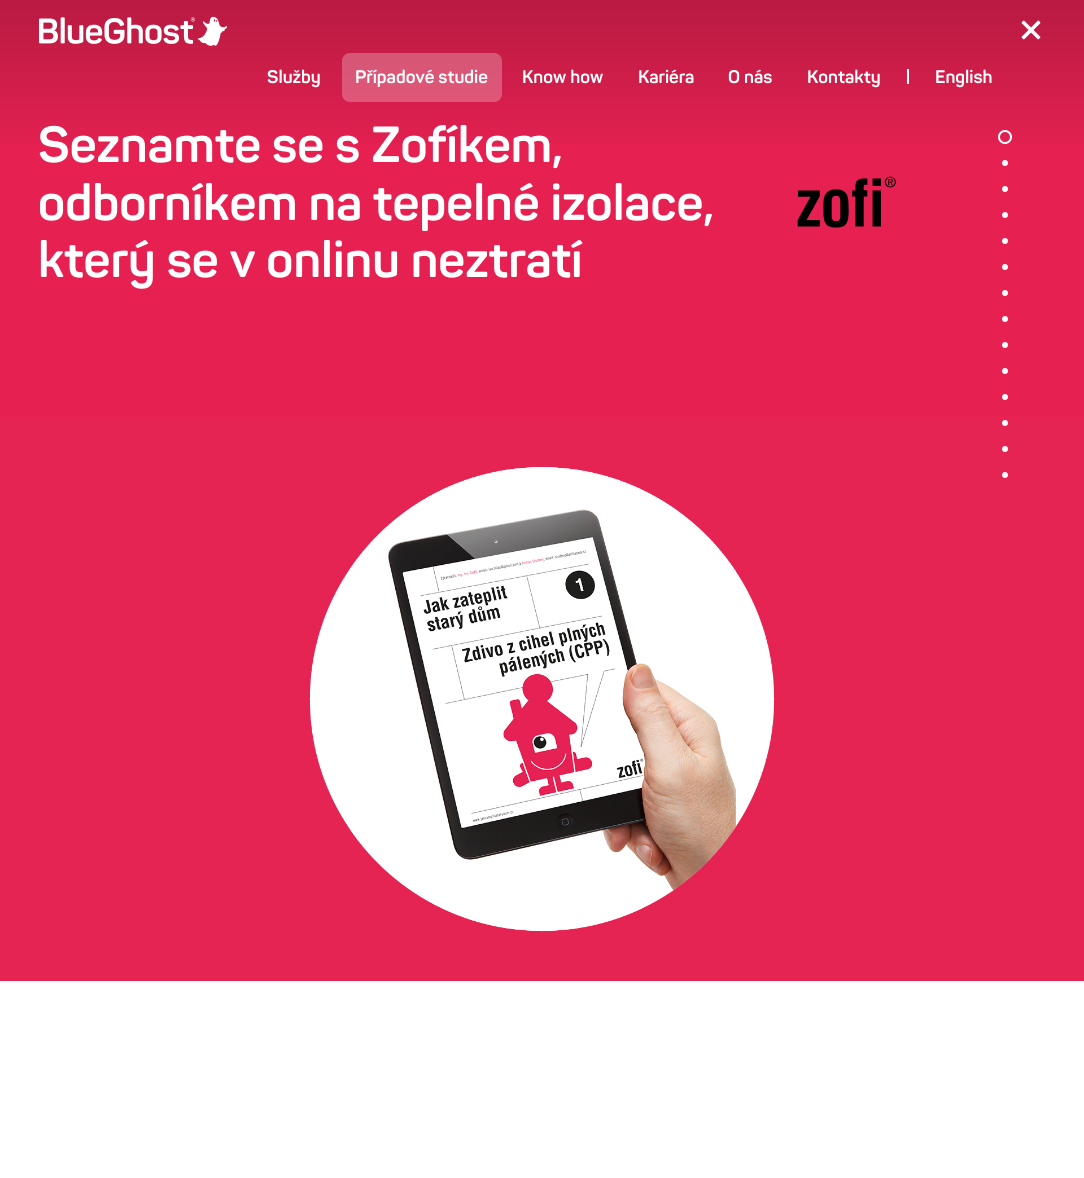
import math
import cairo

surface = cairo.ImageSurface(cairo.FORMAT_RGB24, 1084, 1178)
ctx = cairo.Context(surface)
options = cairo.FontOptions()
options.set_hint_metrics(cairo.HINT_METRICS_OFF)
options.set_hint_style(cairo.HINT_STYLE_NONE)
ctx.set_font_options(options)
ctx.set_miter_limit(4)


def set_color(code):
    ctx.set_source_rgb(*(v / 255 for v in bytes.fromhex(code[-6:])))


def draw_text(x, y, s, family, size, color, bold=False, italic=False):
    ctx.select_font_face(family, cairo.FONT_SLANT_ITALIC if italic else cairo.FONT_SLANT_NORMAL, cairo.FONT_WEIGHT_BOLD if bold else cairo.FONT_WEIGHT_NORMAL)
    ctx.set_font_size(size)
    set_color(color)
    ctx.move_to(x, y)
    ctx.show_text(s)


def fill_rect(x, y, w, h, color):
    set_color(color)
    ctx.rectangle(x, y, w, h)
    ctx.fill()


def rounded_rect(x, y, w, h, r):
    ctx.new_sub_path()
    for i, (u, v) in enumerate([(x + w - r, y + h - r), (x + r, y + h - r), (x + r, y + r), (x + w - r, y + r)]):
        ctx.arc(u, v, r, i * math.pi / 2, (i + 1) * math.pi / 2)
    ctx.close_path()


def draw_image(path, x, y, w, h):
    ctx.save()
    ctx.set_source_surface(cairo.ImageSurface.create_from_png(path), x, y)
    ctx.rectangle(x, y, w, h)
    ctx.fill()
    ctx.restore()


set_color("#ffffff")
ctx.paint()
fill_rect(0, 0, 1084, 417, "#e62152")
gradient = cairo.LinearGradient(542, 0, 542, 160)
gradient.add_color_stop_rgba(0, 0, 0, 0, 0.2)
gradient.add_color_stop_rgba(1, 0, 0, 0, 0)
ctx.set_source(gradient)
ctx.rectangle(0, 0, 1084, 143)
ctx.fill()
draw_image("assets/img1.png", 39, 16, 188, 30)
set_color("#ffffff")
ctx.new_path()
ctx.move_to(1024.5, 21)
ctx.line_to(1040, 36.5)
ctx.curve_to(1040.5, 37, 1040.5, 37.5, 1040, 38)
ctx.line_to(1039, 39)
ctx.curve_to(1038.5, 39.5, 1038, 39.5, 1037.5, 39)
ctx.line_to(1022, 23.5)
ctx.curve_to(1021.5, 23, 1021.5, 22.5, 1022, 22)
ctx.line_to(1023, 21)
ctx.curve_to(1023.5, 20.5, 1024, 20.5, 1024.5, 21)
ctx.close_path()
ctx.fill()
ctx.new_path()
ctx.move_to(1022, 36.5)
ctx.line_to(1037.5, 21)
ctx.curve_to(1038, 20.5, 1038.5, 20.5, 1039, 21)
ctx.line_to(1040, 22)
ctx.curve_to(1040.5, 22.5, 1040.5, 23, 1040, 23.5)
ctx.line_to(1024.5, 39)
ctx.curve_to(1024, 39.5, 1023.5, 39.5, 1023, 39)
ctx.line_to(1022, 38)
ctx.curve_to(1021.5, 37.5, 1021.5, 37, 1022, 36.5)
ctx.close_path()
ctx.fill()
draw_text(267, 83, "Služby", "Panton", 18, "#ffffff", bold=True)
ctx.set_source_rgba(1, 1, 1, 0.25)
rounded_rect(342, 53, 160, 49, 8)
ctx.fill()
draw_text(355, 83, "Případové studie", "Panton", 18, "#ffffff", bold=True)
draw_text(522, 83, "Know how", "Panton", 18, "#ffffff", bold=True)
draw_text(638, 83, "Kariéra", "Panton", 18, "#ffffff", bold=True)
draw_text(728, 83, "O nás", "Panton", 18, "#ffffff", bold=True)
draw_text(807, 83, "Kontakty", "Panton", 18, "#ffffff", bold=True)
fill_rect(907, 69, 2, 15, "#ffffff")
draw_text(935, 83, "English", "Panton", 18, "#ffffff", bold=True)
draw_text(38, 162, "Seznamte se s Zofíkem,", "Panton", 50, "#ffffff", bold=True)
draw_text(38, 220, "odborníkem na tepelné izolace,", "Panton", 50, "#ffffff", bold=True)
draw_text(38, 277, "který se v onlinu neztratí", "Panton", 50, "#ffffff", bold=True)
draw_image("assets/img2.png", 797, 176, 99, 52)
draw_image("assets/img3.png", 0, 417, 1084, 564)
ctx.arc(1005, 137, 6, 0, 2 * math.pi)
ctx.stroke()
ctx.arc(1005, 163, 3, 0, 2 * math.pi)
ctx.fill()
ctx.arc(1005, 189, 3, 0, 2 * math.pi)
ctx.fill()
ctx.arc(1005, 215, 3, 0, 2 * math.pi)
ctx.fill()
ctx.arc(1005, 241, 3, 0, 2 * math.pi)
ctx.fill()
ctx.arc(1005, 267, 3, 0, 2 * math.pi)
ctx.fill()
ctx.arc(1005, 293, 3, 0, 2 * math.pi)
ctx.fill()
ctx.arc(1005, 319, 3, 0, 2 * math.pi)
ctx.fill()
ctx.arc(1005, 345, 3, 0, 2 * math.pi)
ctx.fill()
ctx.arc(1005, 371, 3, 0, 2 * math.pi)
ctx.fill()
ctx.arc(1005, 397, 3, 0, 2 * math.pi)
ctx.fill()
ctx.arc(1005, 423, 3, 0, 2 * math.pi)
ctx.fill()
ctx.arc(1005, 449, 3, 0, 2 * math.pi)
ctx.fill()
ctx.arc(1005, 475, 3, 0, 2 * math.pi)
ctx.fill()
surface.write_to_png("output.png")
